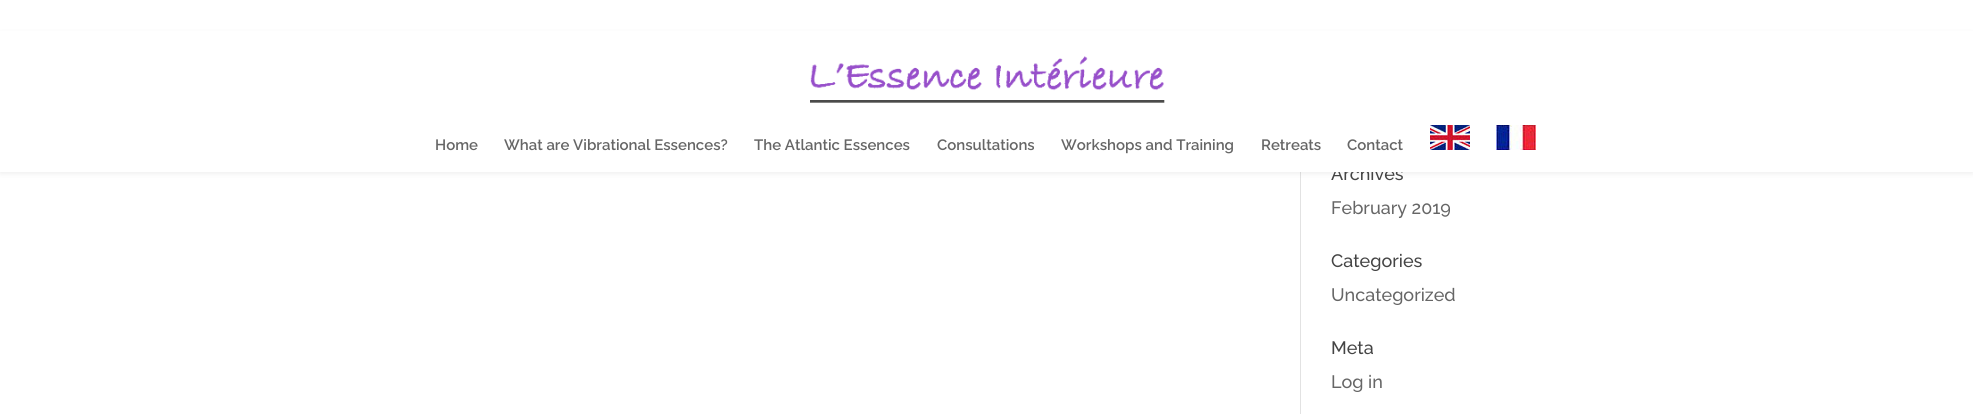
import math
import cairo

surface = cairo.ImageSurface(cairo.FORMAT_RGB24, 1973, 414)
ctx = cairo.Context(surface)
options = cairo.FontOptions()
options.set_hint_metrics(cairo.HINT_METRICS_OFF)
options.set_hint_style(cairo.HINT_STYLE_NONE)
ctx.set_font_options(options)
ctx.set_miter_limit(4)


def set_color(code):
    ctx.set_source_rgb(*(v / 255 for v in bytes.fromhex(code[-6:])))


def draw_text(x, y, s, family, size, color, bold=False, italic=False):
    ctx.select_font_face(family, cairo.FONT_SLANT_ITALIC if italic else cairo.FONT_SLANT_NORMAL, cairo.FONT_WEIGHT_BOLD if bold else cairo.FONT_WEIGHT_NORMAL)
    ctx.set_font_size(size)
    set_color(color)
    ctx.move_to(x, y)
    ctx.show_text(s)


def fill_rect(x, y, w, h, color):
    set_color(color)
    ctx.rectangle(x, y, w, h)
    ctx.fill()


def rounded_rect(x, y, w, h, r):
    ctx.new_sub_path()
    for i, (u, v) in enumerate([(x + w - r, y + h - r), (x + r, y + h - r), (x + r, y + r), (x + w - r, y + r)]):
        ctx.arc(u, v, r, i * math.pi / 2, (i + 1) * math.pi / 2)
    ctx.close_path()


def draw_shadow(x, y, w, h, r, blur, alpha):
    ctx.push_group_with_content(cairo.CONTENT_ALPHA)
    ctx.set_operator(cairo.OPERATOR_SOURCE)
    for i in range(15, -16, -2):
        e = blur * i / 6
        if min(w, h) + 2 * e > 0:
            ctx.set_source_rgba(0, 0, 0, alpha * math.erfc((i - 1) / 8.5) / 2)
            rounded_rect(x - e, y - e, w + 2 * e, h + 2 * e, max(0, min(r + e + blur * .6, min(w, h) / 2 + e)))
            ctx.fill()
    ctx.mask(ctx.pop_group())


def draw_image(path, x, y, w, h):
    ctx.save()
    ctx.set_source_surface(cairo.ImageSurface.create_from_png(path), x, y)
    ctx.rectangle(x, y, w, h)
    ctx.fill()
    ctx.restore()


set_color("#ffffff")
ctx.paint()
fill_rect(1300, 172, 1, 242, "#e2e2e2")
set_color("#000000")
draw_shadow(0, 35, 1973, 137, 0, 3.5, 0.1)
draw_text(1331, 180, "Archives", "Raleway Thin", 18, "#444444")
fill_rect(0, 31, 1973, 141, "#ffffff")
draw_image("assets/img1.png", 810, 56, 355, 47)
draw_text(435, 150, "Home", "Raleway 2 Thin", 15, "#666666")
draw_text(504, 150, "What are Vibrational Essences?", "Raleway 2 Thin", 15, "#666666")
draw_text(754, 150, "The Atlantic Essences", "Raleway 2 Thin", 15, "#666666")
draw_text(937, 150, "Consultations", "Raleway 2 Thin", 15, "#666666")
draw_text(1061, 150, "Workshops and Training", "Raleway 2 Thin", 15, "#666666")
draw_text(1261, 150, "Retreats", "Raleway 2 Thin", 15, "#666666")
draw_text(1347, 150, "Contact", "Raleway 2 Thin", 15, "#666666")
draw_image("assets/img2.png", 1430, 125, 40, 25)
draw_image("assets/img3.png", 1496, 125, 40, 25)
draw_text(1331, 214, "February 2019", "Raleway Thin", 18, "#666666")
draw_text(1331, 267, "Categories", "Raleway Thin", 18, "#444444")
draw_text(1331, 301, "Uncategorized", "Raleway Thin", 18, "#666666")
draw_text(1331, 354, "Meta", "Raleway Thin", 18, "#444444")
draw_text(1331, 388, "Log in", "Raleway Thin", 18, "#666666")
surface.write_to_png("output.png")
